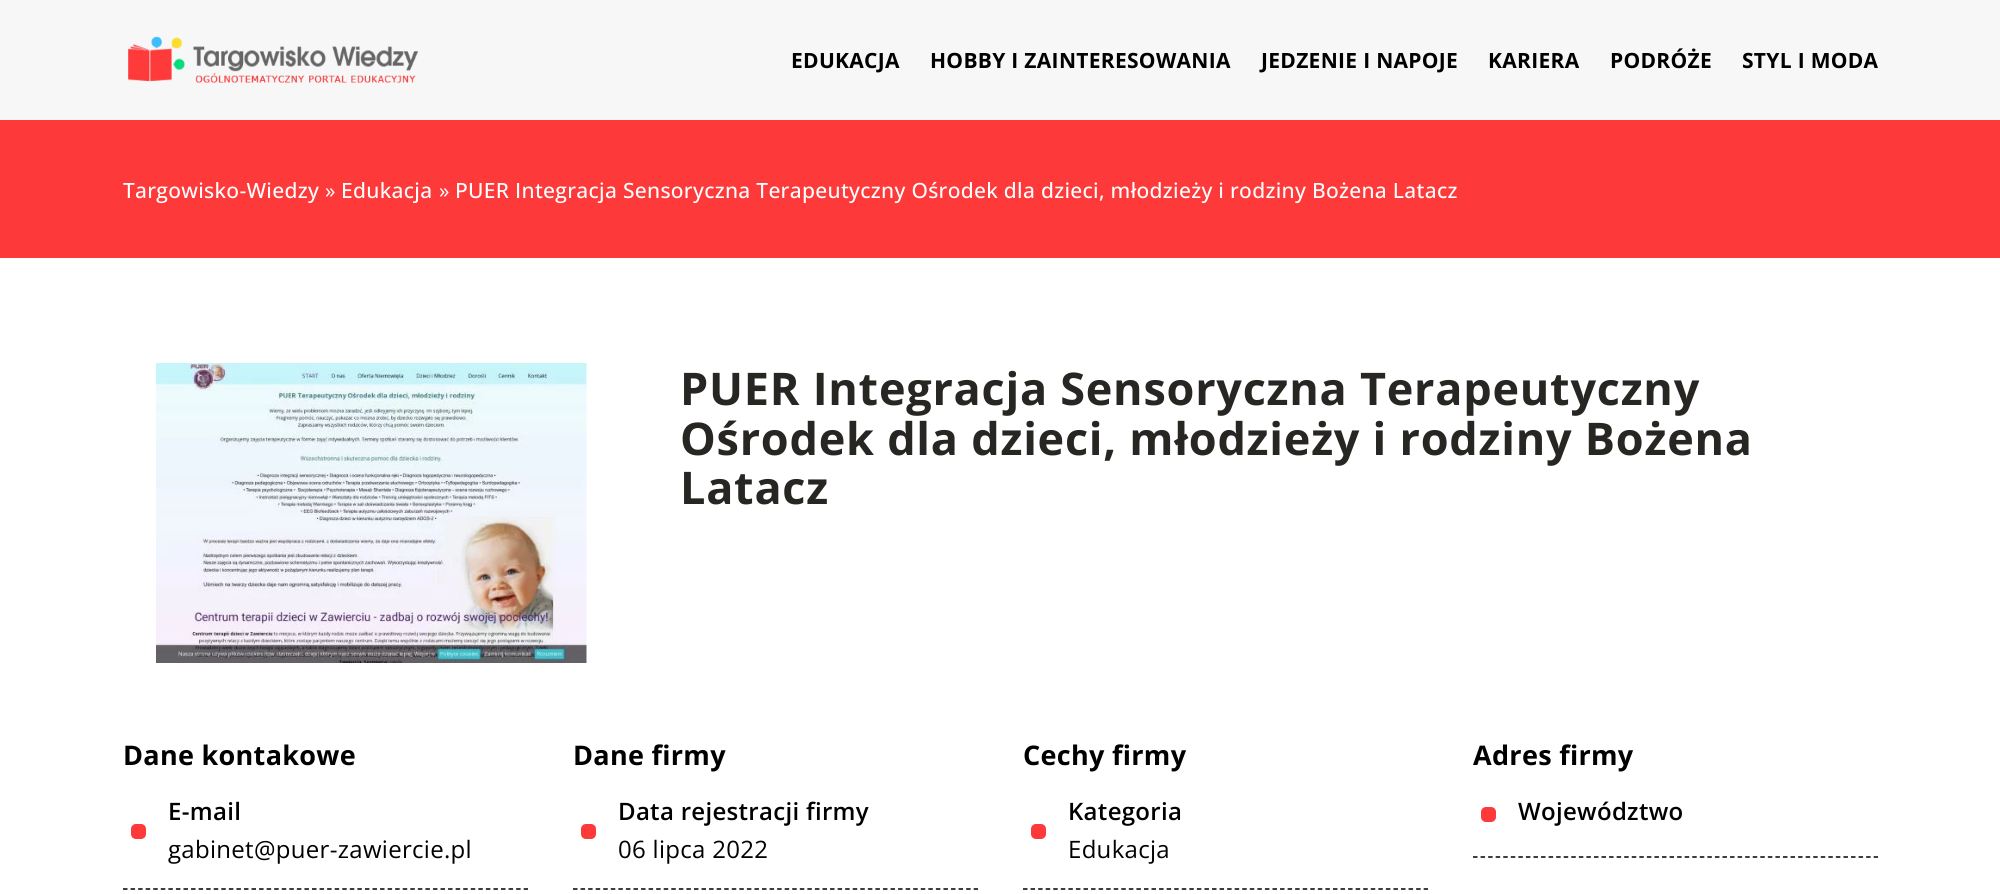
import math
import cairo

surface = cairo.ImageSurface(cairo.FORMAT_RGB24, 2000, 894)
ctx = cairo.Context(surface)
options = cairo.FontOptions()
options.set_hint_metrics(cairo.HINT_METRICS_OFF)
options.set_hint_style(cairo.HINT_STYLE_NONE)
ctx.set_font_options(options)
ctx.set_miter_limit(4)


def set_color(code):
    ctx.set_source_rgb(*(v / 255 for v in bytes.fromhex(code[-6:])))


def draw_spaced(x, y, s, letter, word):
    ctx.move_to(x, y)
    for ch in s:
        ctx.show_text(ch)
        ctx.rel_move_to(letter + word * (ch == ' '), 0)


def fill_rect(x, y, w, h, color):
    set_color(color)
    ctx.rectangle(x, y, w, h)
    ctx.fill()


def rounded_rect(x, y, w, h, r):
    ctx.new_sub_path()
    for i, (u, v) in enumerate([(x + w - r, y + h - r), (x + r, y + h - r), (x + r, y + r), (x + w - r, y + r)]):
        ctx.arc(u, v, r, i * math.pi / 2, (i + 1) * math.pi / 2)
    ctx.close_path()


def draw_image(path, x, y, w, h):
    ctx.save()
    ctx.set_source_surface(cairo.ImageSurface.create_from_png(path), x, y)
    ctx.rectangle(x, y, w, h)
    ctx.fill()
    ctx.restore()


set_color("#ffffff")
ctx.paint()
fill_rect(0, 0, 2000, 120, "#f7f7f7")
draw_image("assets/img1.png", 128, 36, 290, 47)
ctx.select_font_face("Open Sans", cairo.FONT_SLANT_NORMAL, cairo.FONT_WEIGHT_BOLD)
ctx.set_font_size(21)
set_color("#000000")
draw_spaced(791, 68, "EDUKACJA", 0.3, 0)
draw_spaced(930, 68, "HOBBY I ZAINTERESOWANIA", 0.3, 0)
draw_spaced(1261, 68, "JEDZENIE I NAPOJE", 0.3, 0)
draw_spaced(1488, 68, "KARIERA", 0.3, 0)
draw_spaced(1610, 68, "PODRÓŻE", 0.3, 0)
draw_spaced(1742, 68, "STYL I MODA", 0.3, 0)
fill_rect(0, 120, 2000, 138, "#fe393a")
ctx.select_font_face("Open Sans Medium")
set_color("#ffffff")
draw_spaced(123, 198, "Targowisko-Wiedzy", 0.3, 0)
ctx.select_font_face("Open Sans")
draw_spaced(325, 198, "»", 0.3, 0)
ctx.select_font_face("Open Sans Medium")
draw_spaced(341, 198, "Edukacja", 0.3, 0)
ctx.select_font_face("Open Sans")
draw_spaced(439, 198, "»", 0.3, 0)
ctx.select_font_face("Open Sans Medium")
draw_spaced(455, 198, "PUER Integracja Sensoryczna Terapeutyczny Ośrodek dla dzieci, młodzieży i rodziny Bożena Latacz", 0.3, 0)
draw_image("assets/img2.png", 156, 363, 431, 300)
ctx.select_font_face("Open Sans", cairo.FONT_SLANT_NORMAL, cairo.FONT_WEIGHT_BOLD)
ctx.set_font_size(45)
set_color("#282622")
draw_spaced(680, 405, "PUER Integracja Sensoryczna Terapeutyczny", 0.75, 0)
draw_spaced(680, 455, "Ośrodek dla dzieci, młodzieży i rodziny Bożena", 0.75, 0)
draw_spaced(680, 504, "Latacz", 0.75, 0)
ctx.set_font_size(27)
set_color("#000000")
draw_spaced(123, 765, "Dane kontakowe", 0.3, 0)
ctx.new_path()
ctx.move_to(123, 889)
ctx.line_to(528, 889)
ctx.set_line_width(1.5)
ctx.set_dash([4.5, 3.06])
ctx.stroke()
ctx.select_font_face("Open Sans SemiBold")
ctx.set_font_size(24)
draw_spaced(168, 820, "E-mail", 0.3, 0)
set_color("#fe393a")
rounded_rect(131, 824, 15, 15, 5)
ctx.fill()
ctx.select_font_face("Open Sans")
set_color("#000000")
draw_spaced(168, 858, "gabinet@puer-zawiercie.pl", 0.3, 0)
ctx.select_font_face("Open Sans", cairo.FONT_SLANT_NORMAL, cairo.FONT_WEIGHT_BOLD)
ctx.set_font_size(27)
draw_spaced(573, 765, "Dane firmy", 0.3, 0)
ctx.new_path()
ctx.move_to(573, 889)
ctx.line_to(978, 889)
ctx.stroke()
ctx.select_font_face("Open Sans SemiBold")
ctx.set_font_size(24)
draw_spaced(618, 820, "Data rejestracji firmy", 0.3, 0)
set_color("#fe393a")
rounded_rect(581, 824, 15, 15, 5)
ctx.fill()
ctx.select_font_face("Open Sans")
set_color("#000000")
draw_spaced(618, 858, "06 lipca 2022", 0.3, 0)
ctx.select_font_face("Open Sans", cairo.FONT_SLANT_NORMAL, cairo.FONT_WEIGHT_BOLD)
ctx.set_font_size(27)
draw_spaced(1023, 765, "Cechy firmy", 0.3, 0)
ctx.new_path()
ctx.move_to(1023, 889)
ctx.line_to(1428, 889)
ctx.stroke()
ctx.select_font_face("Open Sans SemiBold")
ctx.set_font_size(24)
draw_spaced(1068, 820, "Kategoria", 0.3, 0)
set_color("#fe393a")
rounded_rect(1031, 824, 15, 15, 5)
ctx.fill()
ctx.select_font_face("Open Sans")
set_color("#000000")
draw_spaced(1068, 858, "Edukacja", 0.3, 0)
ctx.select_font_face("Open Sans", cairo.FONT_SLANT_NORMAL, cairo.FONT_WEIGHT_BOLD)
ctx.set_font_size(27)
draw_spaced(1473, 765, "Adres firmy", 0.3, 0)
ctx.new_path()
ctx.move_to(1473, 857)
ctx.line_to(1878, 857)
ctx.stroke()
set_color("#fe393a")
rounded_rect(1481, 807, 15, 15, 5)
ctx.fill()
ctx.select_font_face("Open Sans SemiBold")
ctx.set_font_size(24)
set_color("#000000")
draw_spaced(1518, 820, "Województwo", 0.3, 0)
surface.write_to_png("output.png")
